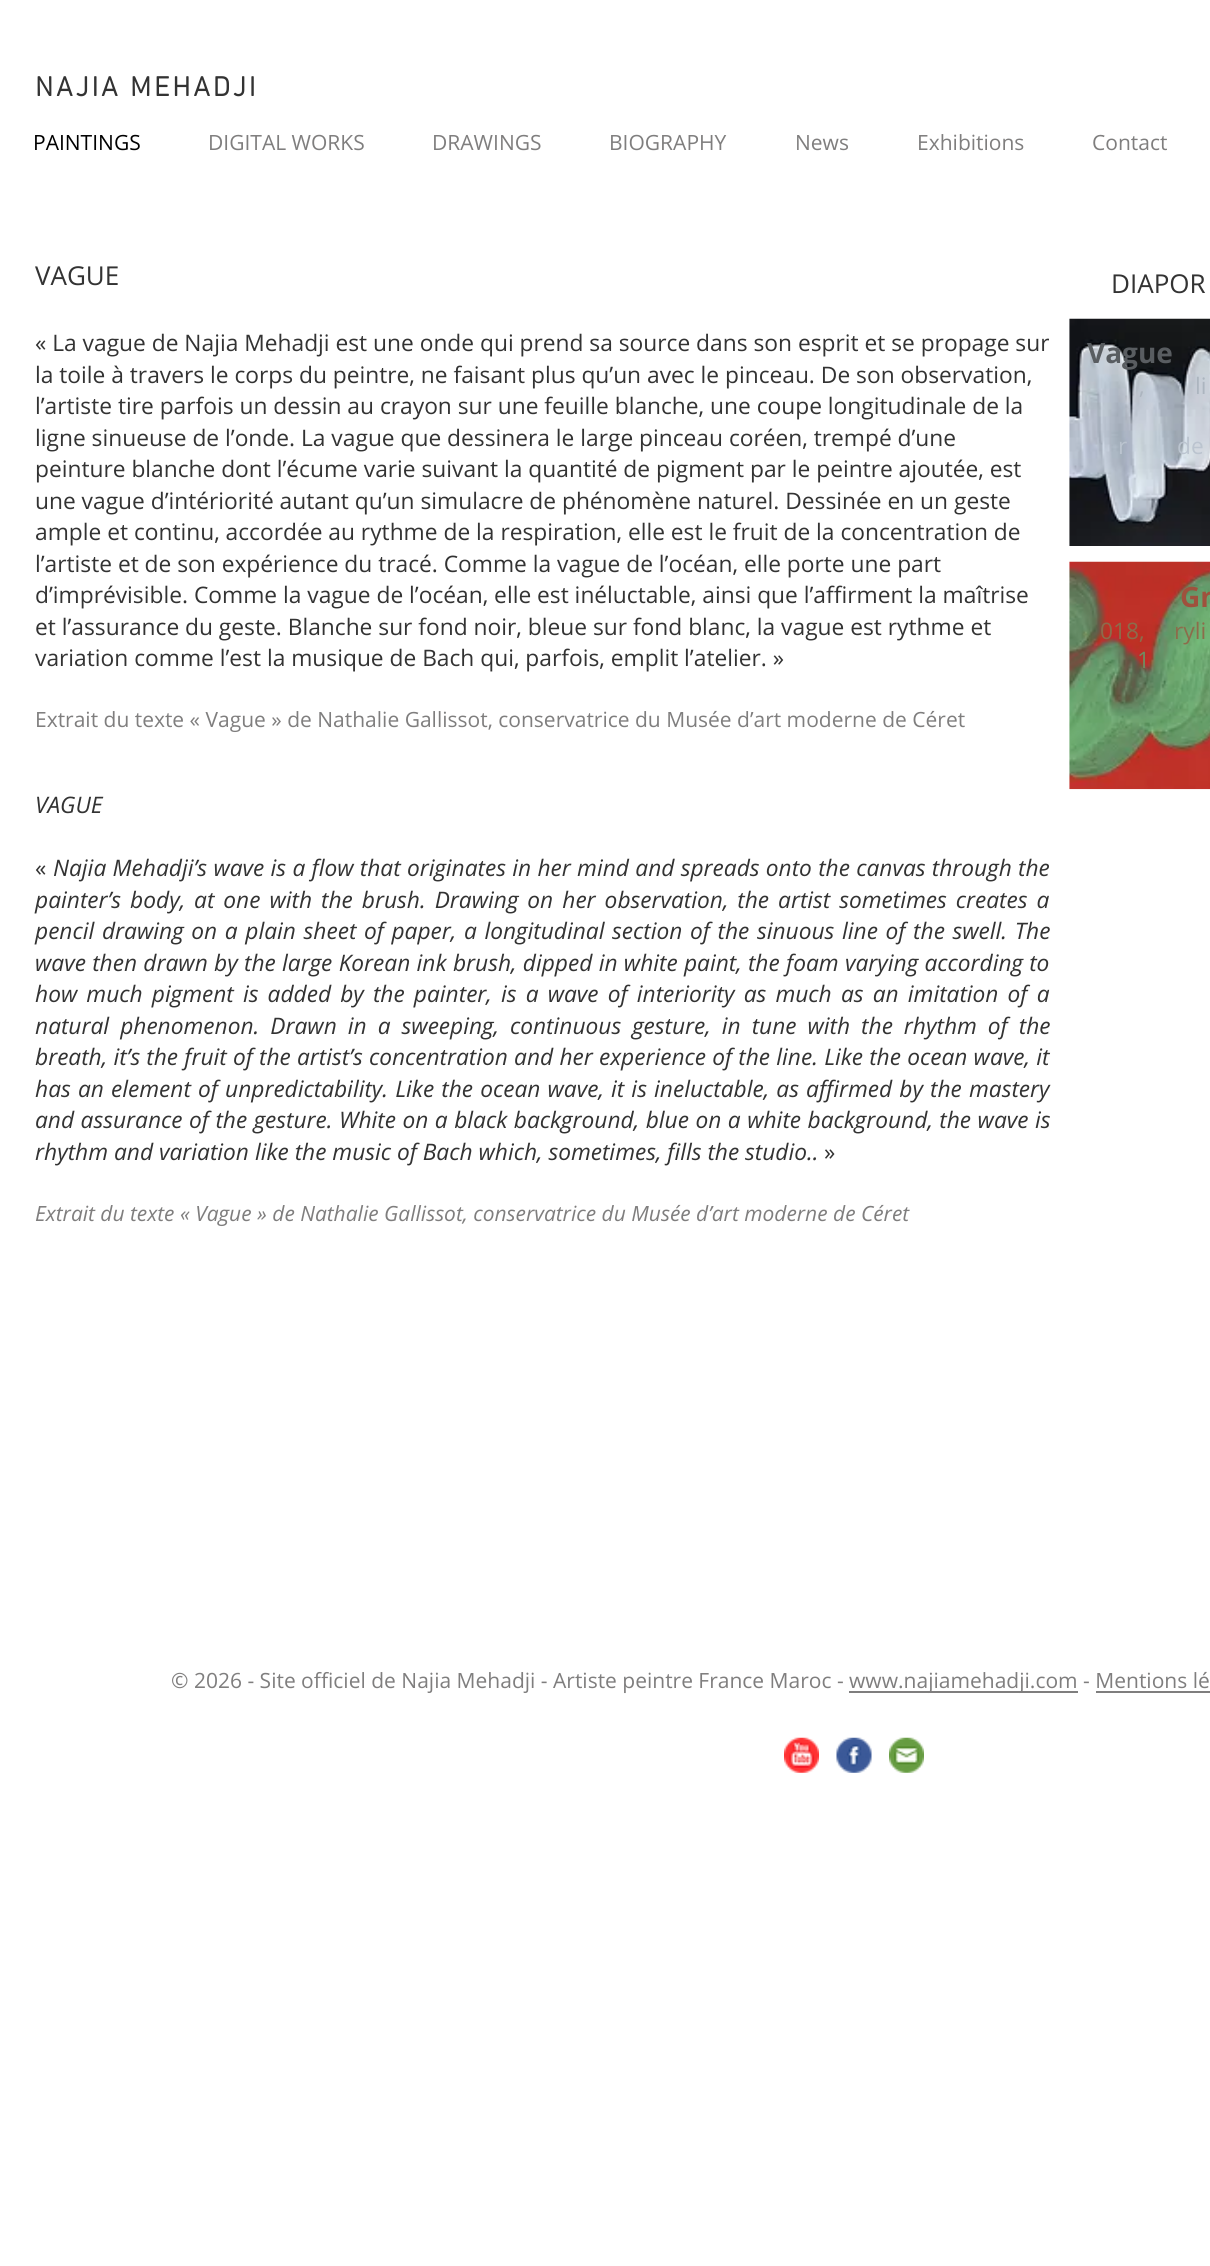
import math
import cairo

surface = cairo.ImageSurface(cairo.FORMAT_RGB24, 1210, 2266)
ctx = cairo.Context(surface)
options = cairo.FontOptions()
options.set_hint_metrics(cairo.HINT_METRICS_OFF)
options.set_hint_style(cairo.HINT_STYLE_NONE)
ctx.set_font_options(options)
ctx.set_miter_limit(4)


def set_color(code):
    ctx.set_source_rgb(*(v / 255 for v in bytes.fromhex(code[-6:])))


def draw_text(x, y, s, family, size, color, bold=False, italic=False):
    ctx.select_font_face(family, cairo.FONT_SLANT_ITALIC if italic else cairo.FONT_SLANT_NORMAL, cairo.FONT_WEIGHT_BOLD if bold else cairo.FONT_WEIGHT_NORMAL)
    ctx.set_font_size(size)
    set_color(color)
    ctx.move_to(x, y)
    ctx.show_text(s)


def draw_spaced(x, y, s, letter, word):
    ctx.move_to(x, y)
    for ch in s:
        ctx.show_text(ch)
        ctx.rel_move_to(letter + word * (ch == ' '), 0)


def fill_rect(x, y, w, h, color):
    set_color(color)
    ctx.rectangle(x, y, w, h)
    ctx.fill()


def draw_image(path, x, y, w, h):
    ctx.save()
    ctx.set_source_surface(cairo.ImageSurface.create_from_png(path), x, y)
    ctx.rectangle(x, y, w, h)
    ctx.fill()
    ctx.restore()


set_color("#ffffff")
ctx.paint()
ctx.select_font_face("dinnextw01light", cairo.FONT_SLANT_NORMAL, cairo.FONT_WEIGHT_BOLD)
ctx.set_font_size(28)
set_color("#333333")
draw_spaced(35, 96, "NAJIA MEHADJI", 2.75, 0)
draw_text(33, 150, "PAINTINGS", "Open Sans", 21, "#000000")
draw_text(208, 150, "DIGITAL WORKS", "Open Sans", 21, "#7f7e7e")
draw_text(432, 150, "DRAWINGS", "Open Sans", 21, "#7f7e7e")
draw_text(609, 150, "BIOGRAPHY", "Open Sans", 21, "#7f7e7e")
draw_text(795, 150, "News", "Open Sans", 21, "#7f7e7e")
draw_text(917, 150, "Exhibitions", "Open Sans", 21, "#7f7e7e")
draw_text(1092, 150, "Contact", "Open Sans", 21, "#7f7e7e")
draw_text(35, 285, "VAGUE", "Open Sans", 26, "#333333")
draw_text(35, 351, "« La vague de Najia Mehadji est une onde qui prend sa source dans son esprit et se propage sur", "Open Sans", 22.75, "#333333")
draw_text(35, 383, "la toile à travers le corps du peintre, ne faisant plus qu’un avec le pinceau. De son observation,", "Open Sans", 22.75, "#333333")
draw_text(35, 414, "l’artiste tire parfois un dessin au crayon sur une feuille blanche, une coupe longitudinale de la", "Open Sans", 22.75, "#333333")
draw_text(35, 446, "ligne sinueuse de l’onde. La vague que dessinera le large pinceau coréen, trempé d’une", "Open Sans", 22.75, "#333333")
draw_text(35, 477, "peinture blanche dont l’écume varie suivant la quantité de pigment par le peintre ajoutée, est", "Open Sans", 22.75, "#333333")
draw_text(35, 509, "une vague d’intériorité autant qu’un simulacre de phénomène naturel. Dessinée en un geste", "Open Sans", 22.75, "#333333")
draw_text(35, 540, "ample et continu, accordée au rythme de la respiration, elle est le fruit de la concentration de", "Open Sans", 22.75, "#333333")
draw_text(35, 572, "l’artiste et de son expérience du tracé. Comme la vague de l’océan, elle porte une part", "Open Sans", 22.75, "#333333")
draw_text(35, 603, "d’imprévisible. Comme la vague de l’océan, elle est inéluctable, ainsi que l’affirment la maîtrise", "Open Sans", 22.75, "#333333")
draw_text(35, 635, "et l’assurance du geste. Blanche sur fond noir, bleue sur fond blanc, la vague est rythme et", "Open Sans", 22.75, "#333333")
draw_text(35, 666, "variation comme l’est la musique de Bach qui, parfois, emplit l’atelier. »", "Open Sans", 22.75, "#333333")
draw_text(35, 727, "Extrait du texte « Vague » de Nathalie Gallissot, conservatrice du Musée d’art moderne de Céret", "Open Sans", 21, "#7f7e7e")
draw_text(35, 813, "VAGUE", "Open Sans", 22.75, "#333333", italic=True)
draw_text(35, 876, "«", "Open Sans", 22.75, "#333333")
ctx.select_font_face("Open Sans", cairo.FONT_SLANT_ITALIC)
draw_spaced(53, 876, "Najia Mehadji’s wave is a flow that originates in her mind and spreads onto the canvas through the", 0, 0.4)
draw_spaced(35, 908, "painter’s body, at one with the brush. Drawing on her observation, the artist sometimes creates a", 0, 3.1)
draw_spaced(35, 939, "pencil drawing on a plain sheet of paper, a longitudinal section of the sinuous line of the swell. The", 0, 1.75)
draw_spaced(35, 971, "wave then drawn by the large Korean ink brush, dipped in white paint, the foam varying according to", 0, 0.4)
draw_spaced(35, 1002, "how much pigment is added by the painter, is a wave of interiority as much as an imitation of a", 0, 3.25)
draw_spaced(35, 1034, "natural phenomenon. Drawn in a sweeping, continuous gesture, in tune with the rhythm of the", 0, 5.1)
draw_spaced(35, 1065, "breath, it’s the fruit of the artist’s concentration and her experience of the line. Like the ocean wave, it", 0, 0.3)
draw_spaced(35, 1097, "has an element of unpredictability. Like the ocean wave, it is ineluctable, as affirmed by the mastery", 0, 1.25)
draw_spaced(35, 1128, "and assurance of the gesture. White on a black background, blue on a white background, the wave is", 0, 0.6)
draw_text(35, 1160, "rhythm and variation like the music of Bach which, sometimes, fills the studio..", "Open Sans", 22.75, "#333333", italic=True)
draw_text(824, 1160, "»", "Open Sans", 22.75, "#333333")
draw_text(35, 1221, "Extrait du texte « Vague » de Nathalie Gallissot, conservatrice du Musée d’art moderne de Céret", "Open Sans", 21, "#7f7e7e", italic=True)
draw_text(1111, 293, "DIAPOR", "Open Sans", 26, "#333333")
draw_image("assets/img1.png", 1069, 318, 141, 228)
draw_text(1087, 363, "Vague", "Open Sans", 28, "#595d61", bold=True)
draw_text(1139, 394, ",", "Open Sans", 22.75, "#acb5bf")
draw_text(1195, 394, "li", "Open Sans", 22.75, "#acb5bf")
draw_text(1118, 454, "r", "Open Sans", 22.75, "#bbc4cf")
draw_text(1177, 454, "de", "Open Sans", 22.75, "#bbc4cf")
draw_image("assets/img2.png", 1069, 561, 141, 229)
draw_text(1180, 607, "Gn", "Open Sans", 28, "#9f513d", bold=True)
draw_text(1100, 639, "018,", "Open Sans", 22.75, "#8c6c4b")
draw_text(1174, 639, "ryli", "Open Sans", 22.75, "#8c6c4b")
draw_text(1137, 668, "1", "Open Sans", 22.75, "#6f8c61")
draw_text(171, 1688, "© 2026 - Site officiel de Najia Mehadji - Artiste peintre France Maroc -", "Open Sans", 21, "#7f7e7e")
fill_rect(849, 1691, 229, 2, "#7f7e7e")
draw_text(849, 1688, "www.najiamehadji.com - Mentions lé", "Open Sans", 21, "#7f7e7e")
fill_rect(1096, 1691, 114, 2, "#7f7e7e")
draw_image("assets/img3.png", 784, 1737, 35, 36)
draw_image("assets/img4.png", 836, 1737, 36, 36)
draw_image("assets/img5.png", 889, 1737, 35, 36)
surface.write_to_png("output.png")
